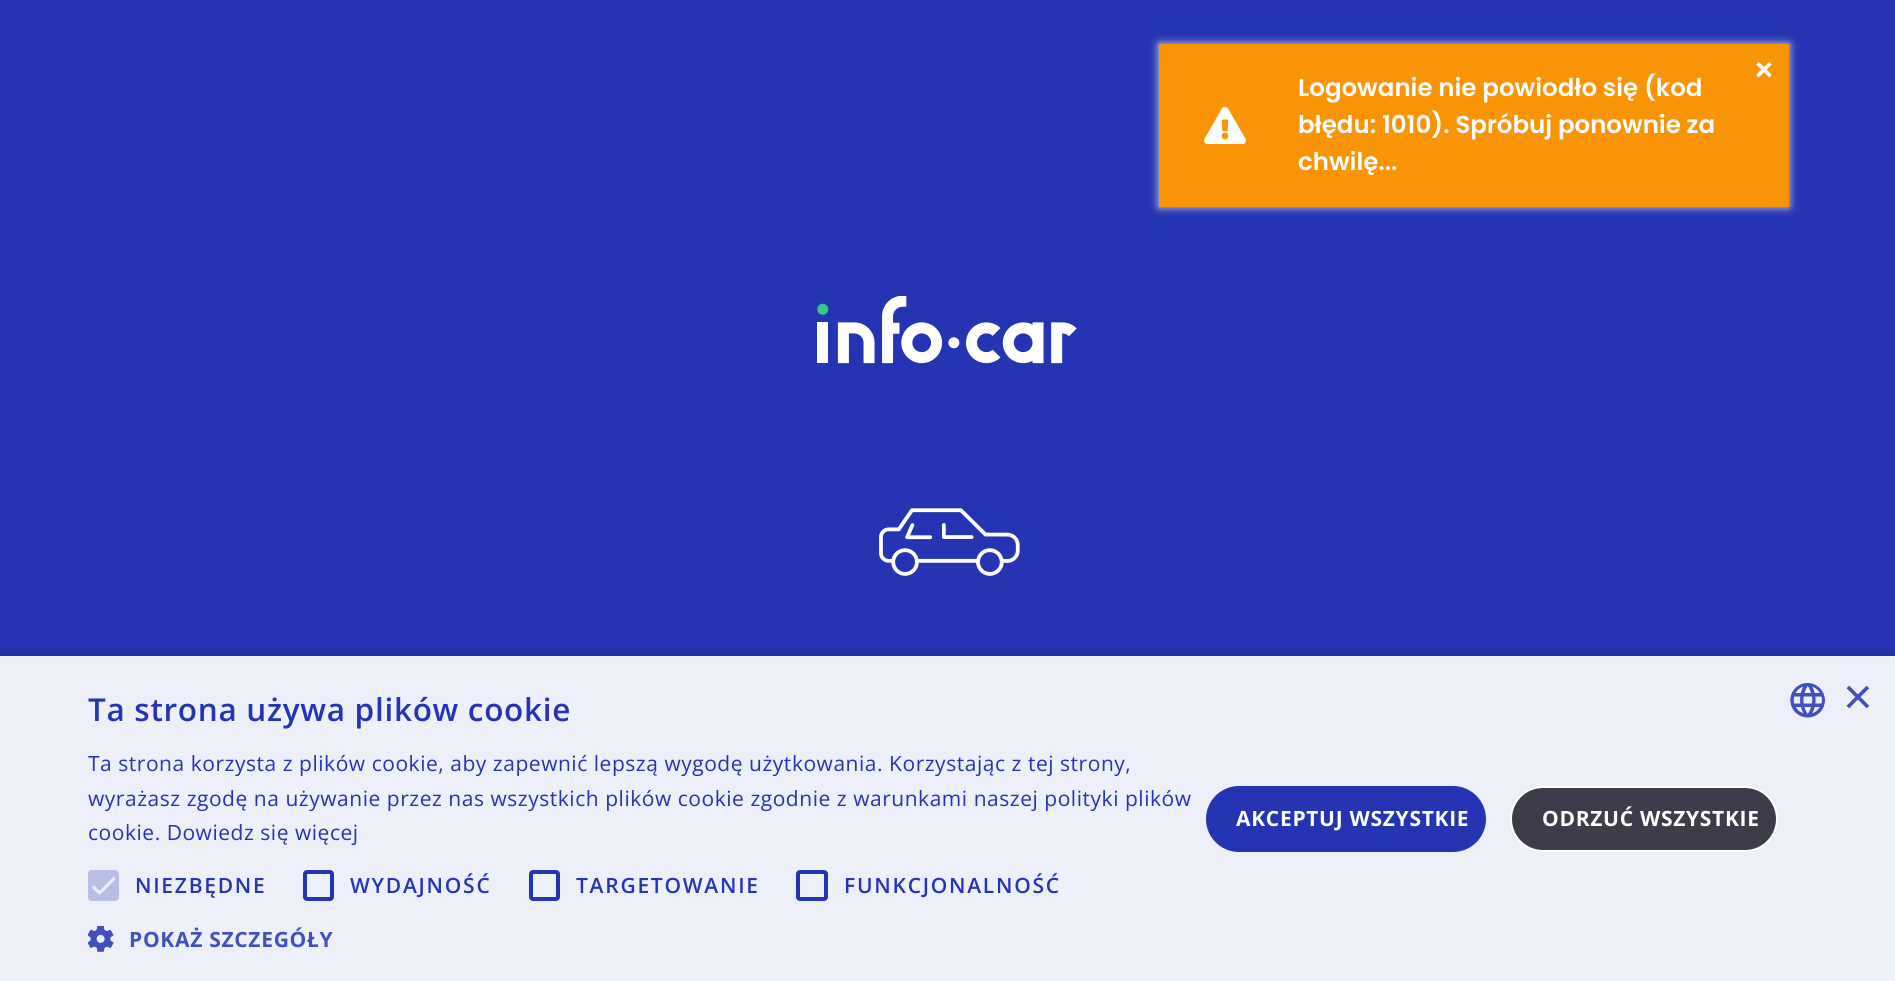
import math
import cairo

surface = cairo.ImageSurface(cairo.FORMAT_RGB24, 1895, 981)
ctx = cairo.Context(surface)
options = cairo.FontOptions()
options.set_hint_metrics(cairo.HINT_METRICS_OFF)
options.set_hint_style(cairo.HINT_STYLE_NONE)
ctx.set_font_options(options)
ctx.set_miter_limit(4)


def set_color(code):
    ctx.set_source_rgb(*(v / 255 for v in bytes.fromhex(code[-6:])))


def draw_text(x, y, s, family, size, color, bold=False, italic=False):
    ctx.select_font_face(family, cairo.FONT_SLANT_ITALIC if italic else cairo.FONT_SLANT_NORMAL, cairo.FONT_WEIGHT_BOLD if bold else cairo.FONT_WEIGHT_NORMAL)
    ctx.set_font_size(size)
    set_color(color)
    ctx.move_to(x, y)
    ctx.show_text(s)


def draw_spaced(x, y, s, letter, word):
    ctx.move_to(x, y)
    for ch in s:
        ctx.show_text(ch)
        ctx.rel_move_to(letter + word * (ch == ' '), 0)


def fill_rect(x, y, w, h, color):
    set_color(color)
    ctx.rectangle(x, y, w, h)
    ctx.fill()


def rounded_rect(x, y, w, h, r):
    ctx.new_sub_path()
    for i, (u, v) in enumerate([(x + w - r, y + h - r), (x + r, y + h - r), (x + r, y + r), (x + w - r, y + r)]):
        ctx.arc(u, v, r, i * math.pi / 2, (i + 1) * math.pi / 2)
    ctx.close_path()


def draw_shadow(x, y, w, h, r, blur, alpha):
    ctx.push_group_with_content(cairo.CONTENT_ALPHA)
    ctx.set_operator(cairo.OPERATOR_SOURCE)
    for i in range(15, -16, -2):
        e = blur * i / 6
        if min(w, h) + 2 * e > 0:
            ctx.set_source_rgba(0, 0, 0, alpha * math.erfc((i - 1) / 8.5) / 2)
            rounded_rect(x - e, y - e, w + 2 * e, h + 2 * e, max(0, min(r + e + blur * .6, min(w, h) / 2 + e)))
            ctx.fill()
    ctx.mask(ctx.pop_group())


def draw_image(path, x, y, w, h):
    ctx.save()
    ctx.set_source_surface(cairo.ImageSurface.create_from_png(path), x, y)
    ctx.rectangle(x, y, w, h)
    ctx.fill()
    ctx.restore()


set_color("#2434b3")
ctx.paint()
set_color("#e0e0e0")
draw_shadow(1159, 44, 630, 163, 0, 4.5, 1)
fill_rect(1159, 44, 630, 163, "#f89406")
draw_image("assets/img1.png", 1204, 107, 42, 37)
draw_text(1754, 82, "×", "Noto Sans", 35, "#ffffff", bold=True)
draw_text(1298, 96, "Logowanie nie powiodło się (kod", "Poppins SemiBold", 24.5, "#ffffff")
draw_text(1298, 133, "błędu: 1010). Spróbuj ponownie za", "Poppins SemiBold", 24.5, "#ffffff")
draw_text(1298, 170, "chwilę...", "Poppins SemiBold", 24.5, "#ffffff")
draw_image("assets/img2.png", 817, 296, 260, 68)
draw_image("assets/img3.png", 879, 508, 141, 68)
set_color("#000000")
draw_shadow(2, 660, 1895, 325, 0, 7, 0.35)
fill_rect(0, 656, 1895, 325, "#edeff9")
ctx.select_font_face("Open Sans SemiBold")
ctx.set_font_size(31.5)
set_color("#2434b3")
draw_spaced(88, 721, "Ta strona używa plików cookie", 0.7, 0)
ctx.select_font_face("Open Sans")
ctx.set_font_size(21)
draw_spaced(88, 771, "Ta strona korzysta z plików cookie, aby zapewnić lepszą wygodę użytkowania. Korzystając z tej strony,", 0.53, 0)
draw_spaced(88, 806, "wyrażasz zgodę na używanie przez nas wszystkich plików cookie zgodnie z warunkami naszej polityki plików", 0.53, 0)
draw_spaced(88, 840, "cookie. Dowiedz się więcej", 0.53, 0)
set_color("#b9bee7")
rounded_rect(88, 870, 31, 31, 4)
ctx.fill()
ctx.new_path()
ctx.move_to(93, 886.5)
ctx.line_to(99.5, 893)
ctx.line_to(114.5, 878)
set_color("#edeff9")
ctx.set_line_width(3.2)
ctx.stroke()
ctx.select_font_face("Open Sans SemiBold")
set_color("#2434b3")
draw_spaced(135, 893, "NIEZBĘDNE", 1.75, 0)
rounded_rect(305, 872, 27, 27, 2)
ctx.set_line_width(4)
ctx.stroke()
draw_spaced(350, 893, "WYDAJNOŚĆ", 1.75, 0)
rounded_rect(531, 872, 27, 27, 2)
ctx.stroke()
draw_spaced(576, 893, "TARGETOWANIE", 1.75, 0)
rounded_rect(798, 872, 28, 27, 2)
ctx.stroke()
draw_spaced(844, 893, "FUNKCJONALNOŚĆ", 1.75, 0)
draw_image("assets/img4.png", 88, 926, 26, 26)
ctx.select_font_face("Open Sans", cairo.FONT_SLANT_NORMAL, cairo.FONT_WEIGHT_BOLD)
set_color("#4250be")
draw_spaced(129, 947, "POKAŻ SZCZEGÓŁY", 0.7, 0)
set_color("#2434b3")
rounded_rect(1206, 786, 280, 66, 33)
ctx.fill()
set_color("#ffffff")
draw_spaced(1236, 826, "AKCEPTUJ WSZYSTKIE", 0.7, 0)
set_color("#3d3c4a")
rounded_rect(1511, 787, 266, 64, 32)
ctx.fill_preserve()
set_color("#ffffff")
ctx.set_line_width(2)
ctx.stroke()
draw_spaced(1542, 826, "ODRZUĆ WSZYSTKIE", 0.7, 0)
draw_image("assets/img5.png", 1790, 683, 35, 35)
draw_text(1843, 714, "×", "Liberation Sans", 51, "#4250be")
surface.write_to_png("output.png")
